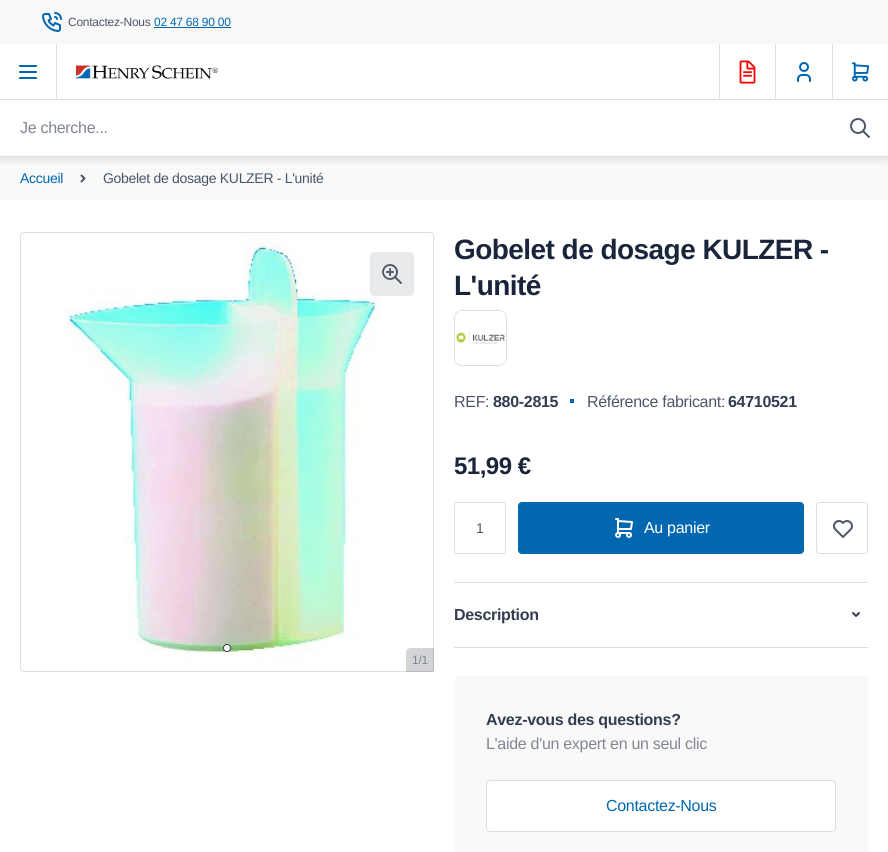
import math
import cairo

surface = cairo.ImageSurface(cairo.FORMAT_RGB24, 888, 852)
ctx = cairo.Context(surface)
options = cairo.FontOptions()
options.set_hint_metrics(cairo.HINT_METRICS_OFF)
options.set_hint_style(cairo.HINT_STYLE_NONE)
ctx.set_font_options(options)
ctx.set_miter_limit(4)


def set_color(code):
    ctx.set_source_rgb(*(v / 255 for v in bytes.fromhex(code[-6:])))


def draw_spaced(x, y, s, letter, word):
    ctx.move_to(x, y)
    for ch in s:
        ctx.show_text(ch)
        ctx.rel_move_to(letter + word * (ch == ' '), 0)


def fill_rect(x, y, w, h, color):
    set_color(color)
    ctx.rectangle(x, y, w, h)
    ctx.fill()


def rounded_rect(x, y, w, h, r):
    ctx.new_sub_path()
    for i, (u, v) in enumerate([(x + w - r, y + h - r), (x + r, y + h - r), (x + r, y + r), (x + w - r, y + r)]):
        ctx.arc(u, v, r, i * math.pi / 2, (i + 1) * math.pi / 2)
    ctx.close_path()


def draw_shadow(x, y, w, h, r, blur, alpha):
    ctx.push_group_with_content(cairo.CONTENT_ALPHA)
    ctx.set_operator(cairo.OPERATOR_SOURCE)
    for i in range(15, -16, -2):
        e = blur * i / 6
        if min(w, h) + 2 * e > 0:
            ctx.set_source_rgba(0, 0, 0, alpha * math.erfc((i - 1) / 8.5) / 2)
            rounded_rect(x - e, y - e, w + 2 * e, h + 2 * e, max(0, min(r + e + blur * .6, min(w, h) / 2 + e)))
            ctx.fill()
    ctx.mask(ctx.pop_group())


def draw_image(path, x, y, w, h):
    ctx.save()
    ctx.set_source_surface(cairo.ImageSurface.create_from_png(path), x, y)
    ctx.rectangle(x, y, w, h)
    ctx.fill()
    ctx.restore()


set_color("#ffffff")
ctx.paint()
fill_rect(0, 0, 888, 44, "#f9f9f9")
draw_image("assets/img1.png", 42, 12, 20, 20)
ctx.select_font_face("Liberation Sans")
ctx.set_font_size(12)
set_color("#4d5667")
draw_spaced(68, 26, "Contactez-Nous", -0.25, 0)
set_color("#0167b0")
draw_spaced(154, 26, "02 47 68 90 00", -0.25, 0)
fill_rect(154, 27, 77, 1, "#0167b0")
fill_rect(0, 157, 888, 43, "#f9f9f9")
draw_image("assets/img8.png", 80, 174, 6, 9)
ctx.save()
ctx.rectangle(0, 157, 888, 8)
ctx.clip()
set_color("#1f2937")
draw_shadow(0, 49, 888, 112, 0, 5, 0.1)
ctx.restore()
fill_rect(56, 44, 1, 56, "#dedede")
draw_image("assets/img2.png", 19, 65, 18, 14)
draw_image("assets/img3.png", 76, 65, 142, 14)
fill_rect(719, 44, 1, 56, "#dedede")
draw_image("assets/img4.png", 739, 60, 17, 24)
fill_rect(775, 44, 1, 56, "#dedede")
draw_image("assets/img5.png", 797, 62, 14, 20)
fill_rect(832, 44, 1, 56, "#dedede")
draw_image("assets/img6.png", 851, 62, 19, 20)
ctx.rectangle(-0.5, 99.5, 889, 57)
ctx.set_line_width(1)
ctx.stroke()
ctx.set_font_size(16)
set_color("#808692")
draw_spaced(20, 133, "Je cherche...", -0.3, 0)
draw_image("assets/img7.png", 850, 118, 20, 20)
ctx.set_font_size(14)
set_color("#0167b0")
draw_spaced(20, 183, "Accueil", -0.3, 0)
set_color("#475569")
draw_spaced(103, 183, "Gobelet de dosage KULZER - L'unité", -0.3, 0)
draw_image("assets/img9.png", 67, 233, 314, 428)
ctx.set_source_rgba(0.122, 0.161, 0.216, 0.1)
rounded_rect(370, 252, 44, 44, 4)
ctx.fill()
draw_image("assets/img10.png", 382, 264, 20, 20)
rounded_rect(20.5, 232.5, 413, 439, 3.5)
set_color("#dedede")
ctx.stroke()
set_color("#ffffff")
ctx.arc(227, 648, 3.5, 0, 2 * math.pi)
ctx.fill_preserve()
set_color("#333d51")
ctx.stroke()
ctx.set_source_rgba(0.122, 0.161, 0.216, 0.2)
ctx.new_path()
ctx.move_to(410, 648)
ctx.line_to(434, 648)
ctx.line_to(434, 672)
ctx.line_to(406, 672)
ctx.line_to(406, 652)
ctx.curve_to(406, 650, 408, 648, 410, 648)
ctx.close_path()
ctx.fill()
ctx.set_font_size(12)
set_color("#808692")
draw_spaced(412, 664, "1/1", -0.25, 0)
ctx.select_font_face("Liberation Sans", cairo.FONT_SLANT_NORMAL, cairo.FONT_WEIGHT_BOLD)
ctx.set_font_size(28)
set_color("#1a253c")
draw_spaced(454, 259, "Gobelet de dosage KULZER -", -0.55, 0)
draw_spaced(454, 295, "L'unité", -0.55, 0)
rounded_rect(454.5, 310.5, 52, 55, 7.5)
set_color("#dedede")
ctx.stroke()
draw_image("assets/img11.png", 455, 311, 51, 54)
ctx.select_font_face("Liberation Sans")
ctx.set_font_size(16)
set_color("#4d5667")
draw_spaced(454, 407, "REF:", -0.3, 0)
ctx.select_font_face("Liberation Sans", cairo.FONT_SLANT_NORMAL, cairo.FONT_WEIGHT_BOLD)
set_color("#333d51")
draw_spaced(493, 407, "880-2815", -0.3, 0)
fill_rect(570, 399, 4, 4, "#0167b0")
ctx.select_font_face("Liberation Sans")
set_color("#4d5667")
draw_spaced(587, 407, "Référence fabricant:", -0.3, 0)
ctx.select_font_face("Liberation Sans", cairo.FONT_SLANT_NORMAL, cairo.FONT_WEIGHT_BOLD)
set_color("#333d51")
draw_spaced(728, 407, "64710521", -0.3, 0)
ctx.set_font_size(24)
set_color("#1a253c")
draw_spaced(454, 474, "51,99 €", -0.5, 0)
rounded_rect(454.5, 502.5, 51, 51, 3.5)
set_color("#dedede")
ctx.stroke()
ctx.select_font_face("Liberation Sans")
ctx.set_font_size(14)
set_color("#4d5667")
draw_spaced(476, 533, "1", -0.3, 0)
set_color("#0167b0")
rounded_rect(518, 502, 286, 52, 4)
ctx.fill()
draw_image("assets/img12.png", 615, 518, 18, 20)
ctx.set_font_size(16)
set_color("#ffffff")
draw_spaced(644, 533, "Au panier", -0.3, 0)
rounded_rect(816.5, 502.5, 51, 51, 3.5)
set_color("#dedede")
ctx.stroke()
draw_image("assets/img13.png", 833, 520, 20, 18)
fill_rect(454, 582, 414, 1, "#dedede")
fill_rect(454, 647, 414, 1, "#dedede")
ctx.select_font_face("Liberation Sans", cairo.FONT_SLANT_NORMAL, cairo.FONT_WEIGHT_BOLD)
set_color("#333d51")
draw_spaced(454, 620, "Description", -0.3, 0)
draw_image("assets/img14.png", 852, 612, 8, 5)
set_color("#f9f9f9")
rounded_rect(454, 676, 414, 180, 4)
ctx.fill()
set_color("#333d51")
draw_spaced(486, 725, "Avez-vous des questions?", -0.3, 0)
ctx.select_font_face("Liberation Sans")
set_color("#808692")
draw_spaced(486, 749, "L'aide d'un expert en un seul clic", -0.3, 0)
set_color("#ffffff")
rounded_rect(486.5, 780.5, 349, 51, 3.5)
ctx.fill_preserve()
set_color("#dedede")
ctx.stroke()
set_color("#0167b0")
draw_spaced(606, 811, "Contactez-Nous", -0.3, 0)
surface.write_to_png("output.png")
